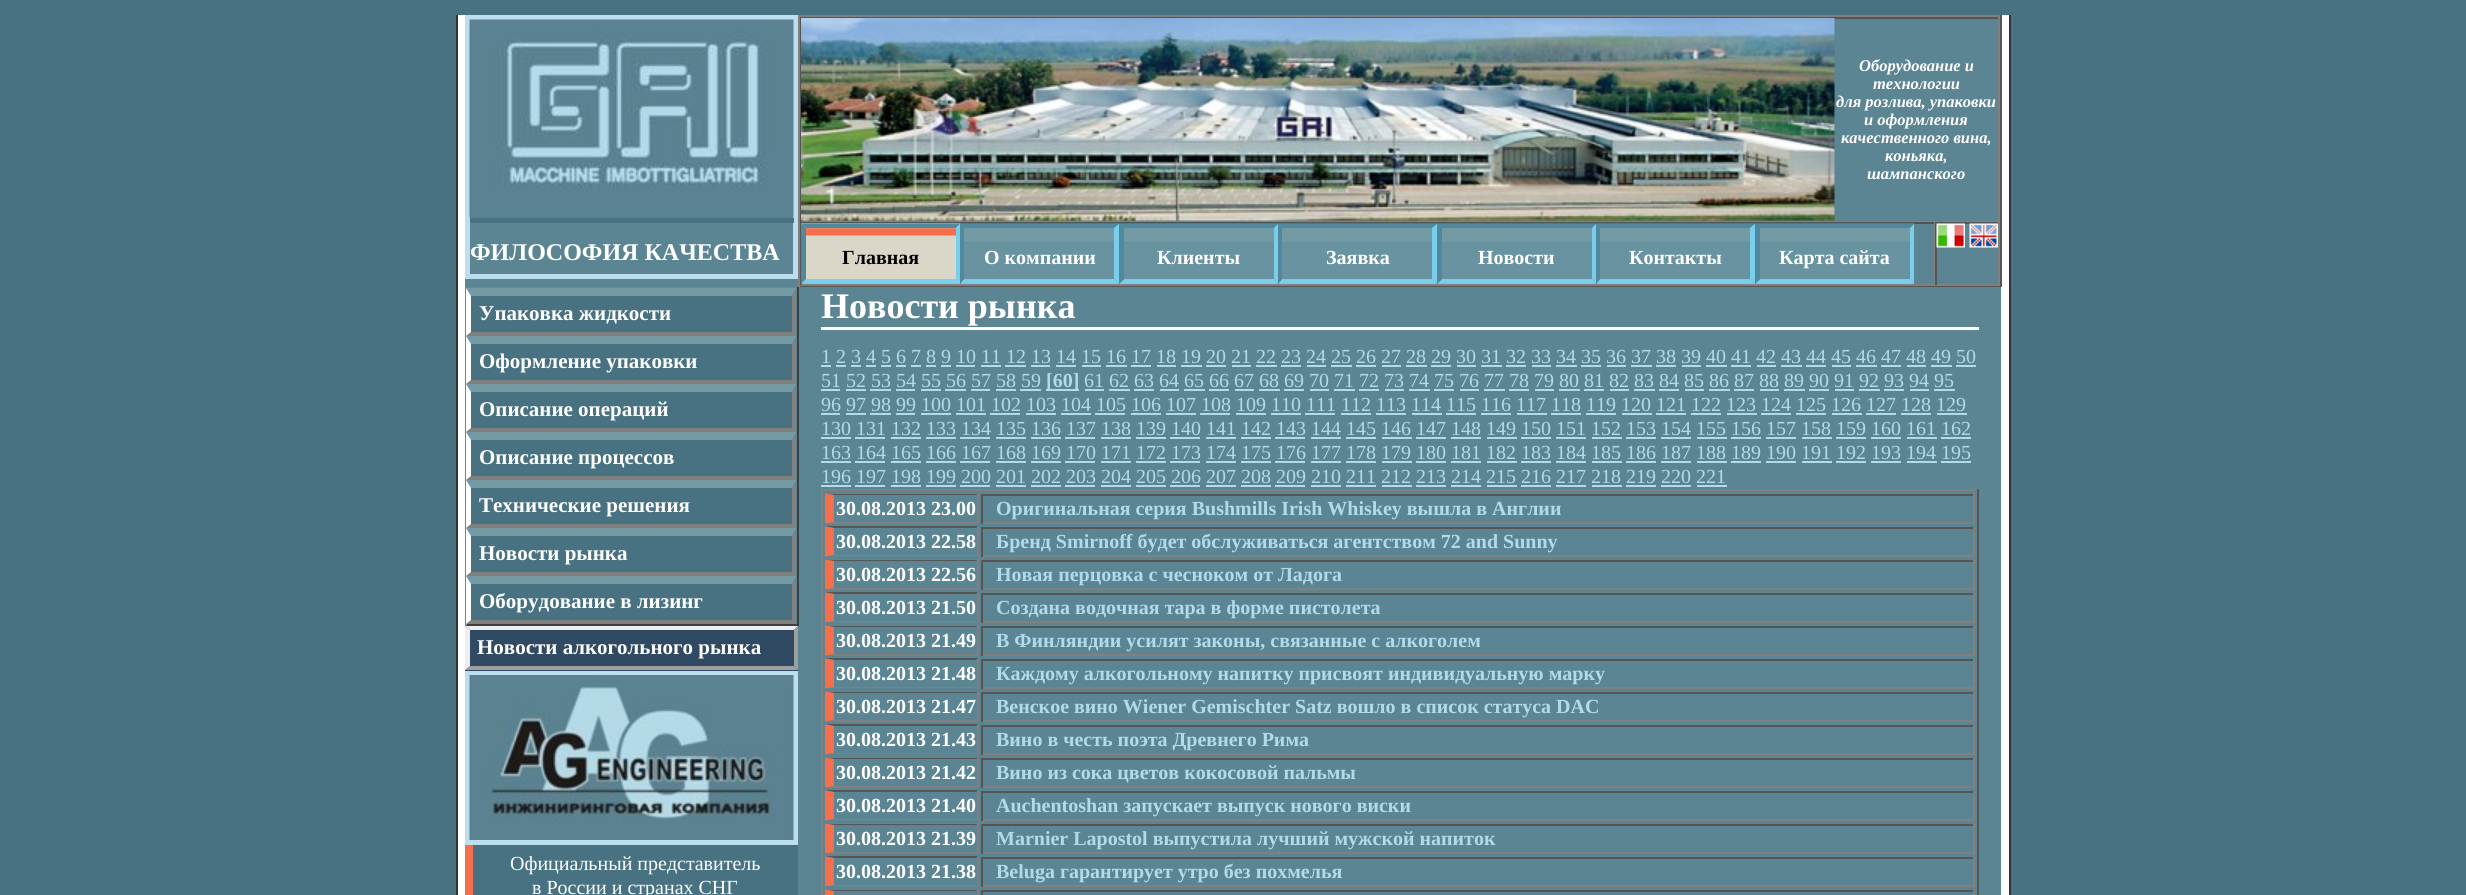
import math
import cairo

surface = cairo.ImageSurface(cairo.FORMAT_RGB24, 2466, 895)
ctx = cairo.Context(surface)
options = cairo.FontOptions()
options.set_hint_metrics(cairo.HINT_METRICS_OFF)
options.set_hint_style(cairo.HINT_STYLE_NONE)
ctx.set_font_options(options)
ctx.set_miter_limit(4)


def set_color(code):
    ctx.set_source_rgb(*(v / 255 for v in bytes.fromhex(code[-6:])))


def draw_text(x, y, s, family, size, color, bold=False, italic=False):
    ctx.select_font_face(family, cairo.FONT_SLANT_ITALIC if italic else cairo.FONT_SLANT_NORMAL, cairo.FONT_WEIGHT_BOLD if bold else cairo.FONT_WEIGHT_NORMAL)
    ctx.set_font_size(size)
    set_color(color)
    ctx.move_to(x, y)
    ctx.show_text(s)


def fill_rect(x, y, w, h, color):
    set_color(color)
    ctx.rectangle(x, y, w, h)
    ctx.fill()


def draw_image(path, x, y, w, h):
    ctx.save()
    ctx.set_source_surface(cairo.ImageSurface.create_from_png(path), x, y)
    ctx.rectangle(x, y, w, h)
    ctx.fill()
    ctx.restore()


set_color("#487282")
ctx.paint()
fill_rect(458, 15, 1551, 880, "#ffffff")
fill_rect(2009, 15, 2, 880, "#333333")
fill_rect(456, 15, 2, 880, "#333333")
fill_rect(465, 19, 1536, 876, "#5b8593")
ctx.rectangle(467.5, 17.5, 328, 259)
set_color("#bddeef")
ctx.set_line_width(5)
ctx.stroke()
draw_image("assets/img1.png", 469, 19, 325, 199)
fill_rect(470, 218, 324, 5, "#487282")
draw_text(470, 260, "ФИЛОСОФИЯ КАЧЕСТВА", "Liberation Serif", 24, "#ffffff", bold=True)
fill_rect(798, 15, 1203, 2, "#808080")
fill_rect(2000, 15, 2, 272, "#555555")
fill_rect(798, 285, 1203, 2, "#555555")
fill_rect(798, 15, 2, 272, "#808080")
fill_rect(800, 17, 1200, 2, "#555555")
fill_rect(1998, 17, 2, 205, "#808080")
fill_rect(800, 221, 1200, 1, "#808080")
fill_rect(800, 17, 2, 205, "#555555")
draw_image("assets/img2.png", 801, 18, 1034, 203)
draw_text(1859, 71, "Оборудование и", "Liberation Serif", 16.5, "#ffffff", bold=True, italic=True)
draw_text(1873, 89, "технологии", "Liberation Serif", 16.5, "#ffffff", bold=True, italic=True)
draw_text(1836, 107, "для розлива, упаковки", "Liberation Serif", 16.5, "#ffffff", bold=True, italic=True)
draw_text(1864, 125, "и оформления", "Liberation Serif", 16.5, "#ffffff", bold=True, italic=True)
draw_text(1841, 143, "качественного вина,", "Liberation Serif", 16.5, "#ffffff", bold=True, italic=True)
draw_text(1885, 161, "коньяка,", "Liberation Serif", 16.5, "#ffffff", bold=True, italic=True)
draw_text(1867, 179, "шампанского", "Liberation Serif", 16.5, "#ffffff", bold=True, italic=True)
fill_rect(800, 222, 1200, 2, "#555555")
fill_rect(1934, 222, 1, 63, "#808080")
fill_rect(800, 284, 1135, 2, "#808080")
fill_rect(800, 222, 2, 63, "#555555")
draw_image("assets/img3.png", 801, 223, 159, 61)
set_color("#50899d")
ctx.new_path()
ctx.move_to(801, 224)
ctx.line_to(960, 224)
ctx.line_to(956, 228)
ctx.line_to(806, 228)
ctx.close_path()
ctx.fill()
set_color("#78ceeb")
ctx.new_path()
ctx.move_to(960, 224)
ctx.line_to(960, 284)
ctx.line_to(956, 279)
ctx.line_to(956, 228)
ctx.close_path()
ctx.fill()
ctx.new_path()
ctx.move_to(960, 284)
ctx.line_to(801, 284)
ctx.line_to(806, 279)
ctx.line_to(956, 279)
ctx.close_path()
ctx.fill()
set_color("#50899d")
ctx.new_path()
ctx.move_to(801, 284)
ctx.line_to(801, 224)
ctx.line_to(806, 228)
ctx.line_to(806, 279)
ctx.close_path()
ctx.fill()
draw_text(842, 264, "Главная", "Liberation Serif", 20, "#000000", bold=True)
draw_image("assets/img4.png", 960, 223, 159, 61)
set_color("#50899d")
ctx.new_path()
ctx.move_to(960, 224)
ctx.line_to(1119, 224)
ctx.line_to(1114, 228)
ctx.line_to(964, 228)
ctx.close_path()
ctx.fill()
set_color("#78ceeb")
ctx.new_path()
ctx.move_to(1119, 224)
ctx.line_to(1119, 284)
ctx.line_to(1114, 279)
ctx.line_to(1114, 228)
ctx.close_path()
ctx.fill()
ctx.new_path()
ctx.move_to(1119, 284)
ctx.line_to(960, 284)
ctx.line_to(964, 279)
ctx.line_to(1114, 279)
ctx.close_path()
ctx.fill()
set_color("#50899d")
ctx.new_path()
ctx.move_to(960, 284)
ctx.line_to(960, 224)
ctx.line_to(964, 228)
ctx.line_to(964, 279)
ctx.close_path()
ctx.fill()
draw_text(984, 264, "О компании", "Liberation Serif", 20, "#ffffff", bold=True)
draw_image("assets/img4.png", 1119, 223, 159, 61)
set_color("#50899d")
ctx.new_path()
ctx.move_to(1119, 224)
ctx.line_to(1278, 224)
ctx.line_to(1274, 228)
ctx.line_to(1124, 228)
ctx.close_path()
ctx.fill()
set_color("#78ceeb")
ctx.new_path()
ctx.move_to(1278, 224)
ctx.line_to(1278, 284)
ctx.line_to(1274, 279)
ctx.line_to(1274, 228)
ctx.close_path()
ctx.fill()
ctx.new_path()
ctx.move_to(1278, 284)
ctx.line_to(1119, 284)
ctx.line_to(1124, 279)
ctx.line_to(1274, 279)
ctx.close_path()
ctx.fill()
set_color("#50899d")
ctx.new_path()
ctx.move_to(1119, 284)
ctx.line_to(1119, 224)
ctx.line_to(1124, 228)
ctx.line_to(1124, 279)
ctx.close_path()
ctx.fill()
draw_text(1157, 264, "Клиенты", "Liberation Serif", 20, "#ffffff", bold=True)
draw_image("assets/img4.png", 1278, 223, 159, 61)
set_color("#50899d")
ctx.new_path()
ctx.move_to(1278, 224)
ctx.line_to(1437, 224)
ctx.line_to(1432, 228)
ctx.line_to(1282, 228)
ctx.close_path()
ctx.fill()
set_color("#78ceeb")
ctx.new_path()
ctx.move_to(1437, 224)
ctx.line_to(1437, 284)
ctx.line_to(1432, 279)
ctx.line_to(1432, 228)
ctx.close_path()
ctx.fill()
ctx.new_path()
ctx.move_to(1437, 284)
ctx.line_to(1278, 284)
ctx.line_to(1282, 279)
ctx.line_to(1432, 279)
ctx.close_path()
ctx.fill()
set_color("#50899d")
ctx.new_path()
ctx.move_to(1278, 284)
ctx.line_to(1278, 224)
ctx.line_to(1282, 228)
ctx.line_to(1282, 279)
ctx.close_path()
ctx.fill()
draw_text(1326, 264, "Заявка", "Liberation Serif", 20, "#ffffff", bold=True)
draw_image("assets/img4.png", 1437, 223, 159, 61)
set_color("#50899d")
ctx.new_path()
ctx.move_to(1437, 224)
ctx.line_to(1596, 224)
ctx.line_to(1592, 228)
ctx.line_to(1442, 228)
ctx.close_path()
ctx.fill()
set_color("#78ceeb")
ctx.new_path()
ctx.move_to(1596, 224)
ctx.line_to(1596, 284)
ctx.line_to(1592, 279)
ctx.line_to(1592, 228)
ctx.close_path()
ctx.fill()
ctx.new_path()
ctx.move_to(1596, 284)
ctx.line_to(1437, 284)
ctx.line_to(1442, 279)
ctx.line_to(1592, 279)
ctx.close_path()
ctx.fill()
set_color("#50899d")
ctx.new_path()
ctx.move_to(1437, 284)
ctx.line_to(1437, 224)
ctx.line_to(1442, 228)
ctx.line_to(1442, 279)
ctx.close_path()
ctx.fill()
draw_text(1478, 264, "Новости", "Liberation Serif", 20, "#ffffff", bold=True)
draw_image("assets/img4.png", 1596, 223, 159, 61)
set_color("#50899d")
ctx.new_path()
ctx.move_to(1596, 224)
ctx.line_to(1755, 224)
ctx.line_to(1750, 228)
ctx.line_to(1600, 228)
ctx.close_path()
ctx.fill()
set_color("#78ceeb")
ctx.new_path()
ctx.move_to(1755, 224)
ctx.line_to(1755, 284)
ctx.line_to(1750, 279)
ctx.line_to(1750, 228)
ctx.close_path()
ctx.fill()
ctx.new_path()
ctx.move_to(1755, 284)
ctx.line_to(1596, 284)
ctx.line_to(1600, 279)
ctx.line_to(1750, 279)
ctx.close_path()
ctx.fill()
set_color("#50899d")
ctx.new_path()
ctx.move_to(1596, 284)
ctx.line_to(1596, 224)
ctx.line_to(1600, 228)
ctx.line_to(1600, 279)
ctx.close_path()
ctx.fill()
draw_text(1629, 264, "Контакты", "Liberation Serif", 20, "#ffffff", bold=True)
draw_image("assets/img4.png", 1755, 223, 159, 61)
set_color("#50899d")
ctx.new_path()
ctx.move_to(1755, 224)
ctx.line_to(1914, 224)
ctx.line_to(1910, 228)
ctx.line_to(1760, 228)
ctx.close_path()
ctx.fill()
set_color("#78ceeb")
ctx.new_path()
ctx.move_to(1914, 224)
ctx.line_to(1914, 284)
ctx.line_to(1910, 279)
ctx.line_to(1910, 228)
ctx.close_path()
ctx.fill()
ctx.new_path()
ctx.move_to(1914, 284)
ctx.line_to(1755, 284)
ctx.line_to(1760, 279)
ctx.line_to(1910, 279)
ctx.close_path()
ctx.fill()
set_color("#50899d")
ctx.new_path()
ctx.move_to(1755, 284)
ctx.line_to(1755, 224)
ctx.line_to(1760, 228)
ctx.line_to(1760, 279)
ctx.close_path()
ctx.fill()
draw_text(1779, 264, "Карта сайта", "Liberation Serif", 20, "#ffffff", bold=True)
fill_rect(1998, 222, 2, 63, "#808080")
fill_rect(1935, 284, 65, 2, "#808080")
fill_rect(1935, 222, 2, 63, "#555555")
draw_image("assets/img5.png", 1936, 223, 29, 25)
draw_image("assets/img6.png", 1969, 223, 29, 25)
fill_rect(465, 287, 333, 2, "#808080")
fill_rect(797, 287, 2, 339, "#3f3f3f")
fill_rect(465, 624, 333, 2, "#3f3f3f")
fill_rect(465, 287, 2, 339, "#808080")
fill_rect(471, 296, 321, 36, "#487282")
set_color("#749ba3")
ctx.new_path()
ctx.move_to(466, 288)
ctx.line_to(796, 288)
ctx.line_to(792, 296)
ctx.line_to(471, 296)
ctx.close_path()
ctx.fill()
set_color("#808080")
ctx.new_path()
ctx.move_to(796, 288)
ctx.line_to(796, 336)
ctx.line_to(792, 332)
ctx.line_to(792, 296)
ctx.close_path()
ctx.fill()
ctx.new_path()
ctx.move_to(796, 336)
ctx.line_to(466, 336)
ctx.line_to(471, 332)
ctx.line_to(792, 332)
ctx.close_path()
ctx.fill()
set_color("#ffffff")
ctx.new_path()
ctx.move_to(466, 336)
ctx.line_to(466, 288)
ctx.line_to(471, 296)
ctx.line_to(471, 332)
ctx.close_path()
ctx.fill()
draw_text(479, 320, "Упаковка жидкости", "Liberation Serif", 21, "#ffffff", bold=True)
fill_rect(471, 344, 321, 36, "#487282")
set_color("#749ba3")
ctx.new_path()
ctx.move_to(466, 336)
ctx.line_to(796, 336)
ctx.line_to(792, 344)
ctx.line_to(471, 344)
ctx.close_path()
ctx.fill()
set_color("#808080")
ctx.new_path()
ctx.move_to(796, 336)
ctx.line_to(796, 384)
ctx.line_to(792, 380)
ctx.line_to(792, 344)
ctx.close_path()
ctx.fill()
ctx.new_path()
ctx.move_to(796, 384)
ctx.line_to(466, 384)
ctx.line_to(471, 380)
ctx.line_to(792, 380)
ctx.close_path()
ctx.fill()
set_color("#ffffff")
ctx.new_path()
ctx.move_to(466, 384)
ctx.line_to(466, 336)
ctx.line_to(471, 344)
ctx.line_to(471, 380)
ctx.close_path()
ctx.fill()
draw_text(479, 368, "Оформление упаковки", "Liberation Serif", 21, "#ffffff", bold=True)
fill_rect(471, 392, 321, 36, "#487282")
set_color("#749ba3")
ctx.new_path()
ctx.move_to(466, 384)
ctx.line_to(796, 384)
ctx.line_to(792, 392)
ctx.line_to(471, 392)
ctx.close_path()
ctx.fill()
set_color("#808080")
ctx.new_path()
ctx.move_to(796, 384)
ctx.line_to(796, 432)
ctx.line_to(792, 428)
ctx.line_to(792, 392)
ctx.close_path()
ctx.fill()
ctx.new_path()
ctx.move_to(796, 432)
ctx.line_to(466, 432)
ctx.line_to(471, 428)
ctx.line_to(792, 428)
ctx.close_path()
ctx.fill()
set_color("#ffffff")
ctx.new_path()
ctx.move_to(466, 432)
ctx.line_to(466, 384)
ctx.line_to(471, 392)
ctx.line_to(471, 428)
ctx.close_path()
ctx.fill()
draw_text(479, 416, "Описание операций", "Liberation Serif", 21, "#ffffff", bold=True)
fill_rect(471, 440, 321, 36, "#487282")
set_color("#749ba3")
ctx.new_path()
ctx.move_to(466, 432)
ctx.line_to(796, 432)
ctx.line_to(792, 440)
ctx.line_to(471, 440)
ctx.close_path()
ctx.fill()
set_color("#808080")
ctx.new_path()
ctx.move_to(796, 432)
ctx.line_to(796, 480)
ctx.line_to(792, 476)
ctx.line_to(792, 440)
ctx.close_path()
ctx.fill()
ctx.new_path()
ctx.move_to(796, 480)
ctx.line_to(466, 480)
ctx.line_to(471, 476)
ctx.line_to(792, 476)
ctx.close_path()
ctx.fill()
set_color("#ffffff")
ctx.new_path()
ctx.move_to(466, 480)
ctx.line_to(466, 432)
ctx.line_to(471, 440)
ctx.line_to(471, 476)
ctx.close_path()
ctx.fill()
draw_text(479, 464, "Описание процессов", "Liberation Serif", 21, "#ffffff", bold=True)
fill_rect(471, 488, 321, 36, "#487282")
set_color("#749ba3")
ctx.new_path()
ctx.move_to(466, 480)
ctx.line_to(796, 480)
ctx.line_to(792, 488)
ctx.line_to(471, 488)
ctx.close_path()
ctx.fill()
set_color("#808080")
ctx.new_path()
ctx.move_to(796, 480)
ctx.line_to(796, 528)
ctx.line_to(792, 524)
ctx.line_to(792, 488)
ctx.close_path()
ctx.fill()
ctx.new_path()
ctx.move_to(796, 528)
ctx.line_to(466, 528)
ctx.line_to(471, 524)
ctx.line_to(792, 524)
ctx.close_path()
ctx.fill()
set_color("#ffffff")
ctx.new_path()
ctx.move_to(466, 528)
ctx.line_to(466, 480)
ctx.line_to(471, 488)
ctx.line_to(471, 524)
ctx.close_path()
ctx.fill()
draw_text(479, 512, "Технические решения", "Liberation Serif", 21, "#ffffff", bold=True)
fill_rect(471, 536, 321, 36, "#487282")
set_color("#749ba3")
ctx.new_path()
ctx.move_to(466, 528)
ctx.line_to(796, 528)
ctx.line_to(792, 536)
ctx.line_to(471, 536)
ctx.close_path()
ctx.fill()
set_color("#808080")
ctx.new_path()
ctx.move_to(796, 528)
ctx.line_to(796, 576)
ctx.line_to(792, 572)
ctx.line_to(792, 536)
ctx.close_path()
ctx.fill()
ctx.new_path()
ctx.move_to(796, 576)
ctx.line_to(466, 576)
ctx.line_to(471, 572)
ctx.line_to(792, 572)
ctx.close_path()
ctx.fill()
set_color("#ffffff")
ctx.new_path()
ctx.move_to(466, 576)
ctx.line_to(466, 528)
ctx.line_to(471, 536)
ctx.line_to(471, 572)
ctx.close_path()
ctx.fill()
draw_text(479, 560, "Новости рынка", "Liberation Serif", 21, "#ffffff", bold=True)
fill_rect(471, 584, 321, 36, "#487282")
set_color("#749ba3")
ctx.new_path()
ctx.move_to(466, 576)
ctx.line_to(796, 576)
ctx.line_to(792, 584)
ctx.line_to(471, 584)
ctx.close_path()
ctx.fill()
set_color("#808080")
ctx.new_path()
ctx.move_to(796, 576)
ctx.line_to(796, 624)
ctx.line_to(792, 620)
ctx.line_to(792, 584)
ctx.close_path()
ctx.fill()
ctx.new_path()
ctx.move_to(796, 624)
ctx.line_to(466, 624)
ctx.line_to(471, 620)
ctx.line_to(792, 620)
ctx.close_path()
ctx.fill()
set_color("#ffffff")
ctx.new_path()
ctx.move_to(466, 624)
ctx.line_to(466, 576)
ctx.line_to(471, 584)
ctx.line_to(471, 620)
ctx.close_path()
ctx.fill()
draw_text(479, 608, "Оборудование в лизинг", "Liberation Serif", 21, "#ffffff", bold=True)
fill_rect(465, 626, 333, 45, "#304a63")
set_color("#eeeeee")
ctx.new_path()
ctx.move_to(465, 626)
ctx.line_to(798, 626)
ctx.line_to(794, 630)
ctx.line_to(470, 630)
ctx.close_path()
ctx.fill()
set_color("#9f9f9f")
ctx.new_path()
ctx.move_to(798, 626)
ctx.line_to(798, 670)
ctx.line_to(794, 666)
ctx.line_to(794, 630)
ctx.close_path()
ctx.fill()
ctx.new_path()
ctx.move_to(798, 670)
ctx.line_to(465, 670)
ctx.line_to(470, 666)
ctx.line_to(794, 666)
ctx.close_path()
ctx.fill()
set_color("#eeeeee")
ctx.new_path()
ctx.move_to(465, 670)
ctx.line_to(465, 626)
ctx.line_to(470, 630)
ctx.line_to(470, 666)
ctx.close_path()
ctx.fill()
draw_text(477, 654, "Новости алкогольного рынка", "Liberation Serif", 21, "#ffffff", bold=True)
ctx.rectangle(467.5, 673.5, 328, 169)
set_color("#bddeef")
ctx.stroke()
draw_image("assets/img7.png", 469, 675, 325, 165)
fill_rect(473, 845, 325, 50, "#487282")
fill_rect(465, 845, 8, 50, "#f56f4c")
draw_text(510, 870, "Официальный представитель", "Liberation Serif", 20, "#ffffff")
draw_text(532, 894, "в России и странах СНГ", "Liberation Serif", 20, "#ffffff")
fill_rect(821, 327, 1158, 3, "#ffffff")
draw_text(821, 318, "Новости рынка", "Liberation Serif", 36, "#ffffff", bold=True)
draw_text(821, 363, "1 2 3 4 5 6 7 8 9 10 11 12 13 14 15 16 17 18 19 20 21 22 23 24 25 26 27 28 29 30 31 32 33 34 35 36 37 38 39 40 41 42 43 44 45 46 47 48 49 50", "Liberation Serif", 20, "#b1dbe9")
fill_rect(821, 365, 10, 2, "#b1dbe9")
fill_rect(836, 365, 10, 2, "#b1dbe9")
fill_rect(851, 365, 10, 2, "#b1dbe9")
fill_rect(866, 365, 10, 2, "#b1dbe9")
fill_rect(881, 365, 10, 2, "#b1dbe9")
fill_rect(896, 365, 10, 2, "#b1dbe9")
fill_rect(911, 365, 10, 2, "#b1dbe9")
fill_rect(926, 365, 10, 2, "#b1dbe9")
fill_rect(941, 365, 10, 2, "#b1dbe9")
fill_rect(956, 365, 19, 2, "#b1dbe9")
fill_rect(981, 365, 20, 2, "#b1dbe9")
fill_rect(1005, 365, 21, 2, "#b1dbe9")
fill_rect(1031, 365, 19, 2, "#b1dbe9")
fill_rect(1056, 365, 20, 2, "#b1dbe9")
fill_rect(1082, 365, 19, 2, "#b1dbe9")
fill_rect(1106, 365, 21, 2, "#b1dbe9")
fill_rect(1131, 365, 20, 2, "#b1dbe9")
fill_rect(1157, 365, 19, 2, "#b1dbe9")
fill_rect(1181, 365, 21, 2, "#b1dbe9")
fill_rect(1206, 365, 20, 2, "#b1dbe9")
fill_rect(1232, 365, 19, 2, "#b1dbe9")
fill_rect(1256, 365, 21, 2, "#b1dbe9")
fill_rect(1281, 365, 20, 2, "#b1dbe9")
fill_rect(1307, 365, 19, 2, "#b1dbe9")
fill_rect(1331, 365, 21, 2, "#b1dbe9")
fill_rect(1356, 365, 20, 2, "#b1dbe9")
fill_rect(1382, 365, 19, 2, "#b1dbe9")
fill_rect(1406, 365, 21, 2, "#b1dbe9")
fill_rect(1431, 365, 20, 2, "#b1dbe9")
fill_rect(1457, 365, 19, 2, "#b1dbe9")
fill_rect(1481, 365, 21, 2, "#b1dbe9")
fill_rect(1506, 365, 20, 2, "#b1dbe9")
fill_rect(1532, 365, 19, 2, "#b1dbe9")
fill_rect(1556, 365, 21, 2, "#b1dbe9")
fill_rect(1581, 365, 20, 2, "#b1dbe9")
fill_rect(1607, 365, 19, 2, "#b1dbe9")
fill_rect(1631, 365, 21, 2, "#b1dbe9")
fill_rect(1656, 365, 20, 2, "#b1dbe9")
fill_rect(1682, 365, 19, 2, "#b1dbe9")
fill_rect(1706, 365, 21, 2, "#b1dbe9")
fill_rect(1731, 365, 20, 2, "#b1dbe9")
fill_rect(1757, 365, 19, 2, "#b1dbe9")
fill_rect(1781, 365, 21, 2, "#b1dbe9")
fill_rect(1806, 365, 20, 2, "#b1dbe9")
fill_rect(1832, 365, 19, 2, "#b1dbe9")
fill_rect(1856, 365, 21, 2, "#b1dbe9")
fill_rect(1881, 365, 20, 2, "#b1dbe9")
fill_rect(1907, 365, 19, 2, "#b1dbe9")
fill_rect(1931, 365, 21, 2, "#b1dbe9")
fill_rect(1956, 365, 20, 2, "#b1dbe9")
draw_text(821, 387, "51 52 53 54 55 56 57 58 59", "Liberation Serif", 20, "#b1dbe9")
fill_rect(821, 389, 19, 2, "#b1dbe9")
fill_rect(1046, 389, 33, 2, "#b1dbe9")
draw_text(1046, 387, "[60]", "Liberation Serif", 20, "#b1dbe9", bold=True)
draw_text(1084, 387, "61 62 63 64 65 66 67 68 69 70 71 72 73 74 75 76 77 78 79 80 81 82 83 84 85 86 87 88 89 90 91 92 93 94 95", "Liberation Serif", 20, "#b1dbe9")
fill_rect(1085, 389, 19, 2, "#b1dbe9")
fill_rect(846, 389, 20, 2, "#b1dbe9")
fill_rect(870, 389, 21, 2, "#b1dbe9")
fill_rect(896, 389, 19, 2, "#b1dbe9")
fill_rect(921, 389, 20, 2, "#b1dbe9")
fill_rect(945, 389, 21, 2, "#b1dbe9")
fill_rect(971, 389, 19, 2, "#b1dbe9")
fill_rect(996, 389, 20, 2, "#b1dbe9")
fill_rect(1020, 389, 21, 2, "#b1dbe9")
fill_rect(1109, 389, 21, 2, "#b1dbe9")
fill_rect(1134, 389, 20, 2, "#b1dbe9")
fill_rect(1160, 389, 19, 2, "#b1dbe9")
fill_rect(1184, 389, 21, 2, "#b1dbe9")
fill_rect(1209, 389, 20, 2, "#b1dbe9")
fill_rect(1235, 389, 19, 2, "#b1dbe9")
fill_rect(1259, 389, 21, 2, "#b1dbe9")
fill_rect(1284, 389, 20, 2, "#b1dbe9")
fill_rect(1310, 389, 19, 2, "#b1dbe9")
fill_rect(1334, 389, 21, 2, "#b1dbe9")
fill_rect(1359, 389, 20, 2, "#b1dbe9")
fill_rect(1385, 389, 19, 2, "#b1dbe9")
fill_rect(1409, 389, 21, 2, "#b1dbe9")
fill_rect(1434, 389, 20, 2, "#b1dbe9")
fill_rect(1460, 389, 19, 2, "#b1dbe9")
fill_rect(1484, 389, 21, 2, "#b1dbe9")
fill_rect(1509, 389, 20, 2, "#b1dbe9")
fill_rect(1535, 389, 19, 2, "#b1dbe9")
fill_rect(1559, 389, 21, 2, "#b1dbe9")
fill_rect(1584, 389, 20, 2, "#b1dbe9")
fill_rect(1610, 389, 19, 2, "#b1dbe9")
fill_rect(1634, 389, 21, 2, "#b1dbe9")
fill_rect(1659, 389, 20, 2, "#b1dbe9")
fill_rect(1685, 389, 19, 2, "#b1dbe9")
fill_rect(1709, 389, 21, 2, "#b1dbe9")
fill_rect(1734, 389, 20, 2, "#b1dbe9")
fill_rect(1760, 389, 19, 2, "#b1dbe9")
fill_rect(1784, 389, 21, 2, "#b1dbe9")
fill_rect(1809, 389, 20, 2, "#b1dbe9")
fill_rect(1835, 389, 19, 2, "#b1dbe9")
fill_rect(1859, 389, 21, 2, "#b1dbe9")
fill_rect(1884, 389, 20, 2, "#b1dbe9")
fill_rect(1910, 389, 19, 2, "#b1dbe9")
fill_rect(1934, 389, 21, 2, "#b1dbe9")
draw_text(821, 411, "96 97 98 99 100 101 102 103 104 105 106 107 108 109 110 111 112 113 114 115 116 117 118 119 120 121 122 123 124 125 126 127 128 129", "Liberation Serif", 20, "#b1dbe9")
fill_rect(821, 413, 19, 2, "#b1dbe9")
fill_rect(846, 413, 20, 2, "#b1dbe9")
fill_rect(870, 413, 21, 2, "#b1dbe9")
fill_rect(896, 413, 19, 2, "#b1dbe9")
fill_rect(921, 413, 30, 2, "#b1dbe9")
fill_rect(956, 413, 30, 2, "#b1dbe9")
fill_rect(990, 413, 30, 2, "#b1dbe9")
fill_rect(1026, 413, 30, 2, "#b1dbe9")
fill_rect(1061, 413, 30, 2, "#b1dbe9")
fill_rect(1095, 413, 30, 2, "#b1dbe9")
fill_rect(1131, 413, 30, 2, "#b1dbe9")
fill_rect(1166, 413, 30, 2, "#b1dbe9")
fill_rect(1200, 413, 30, 2, "#b1dbe9")
fill_rect(1236, 413, 30, 2, "#b1dbe9")
fill_rect(1271, 413, 30, 2, "#b1dbe9")
fill_rect(1305, 413, 30, 2, "#b1dbe9")
fill_rect(1341, 413, 30, 2, "#b1dbe9")
fill_rect(1376, 413, 30, 2, "#b1dbe9")
fill_rect(1412, 413, 30, 2, "#b1dbe9")
fill_rect(1446, 413, 30, 2, "#b1dbe9")
fill_rect(1481, 413, 30, 2, "#b1dbe9")
fill_rect(1517, 413, 30, 2, "#b1dbe9")
fill_rect(1551, 413, 30, 2, "#b1dbe9")
fill_rect(1586, 413, 30, 2, "#b1dbe9")
fill_rect(1622, 413, 30, 2, "#b1dbe9")
fill_rect(1656, 413, 30, 2, "#b1dbe9")
fill_rect(1691, 413, 30, 2, "#b1dbe9")
fill_rect(1727, 413, 30, 2, "#b1dbe9")
fill_rect(1761, 413, 30, 2, "#b1dbe9")
fill_rect(1796, 413, 30, 2, "#b1dbe9")
fill_rect(1832, 413, 30, 2, "#b1dbe9")
fill_rect(1866, 413, 30, 2, "#b1dbe9")
fill_rect(1901, 413, 30, 2, "#b1dbe9")
fill_rect(1937, 413, 30, 2, "#b1dbe9")
draw_text(821, 435, "130 131 132 133 134 135 136 137 138 139 140 141 142 143 144 145 146 147 148 149 150 151 152 153 154 155 156 157 158 159 160 161 162", "Liberation Serif", 20, "#b1dbe9")
fill_rect(821, 437, 30, 2, "#b1dbe9")
fill_rect(855, 437, 30, 2, "#b1dbe9")
fill_rect(891, 437, 30, 2, "#b1dbe9")
fill_rect(926, 437, 30, 2, "#b1dbe9")
fill_rect(960, 437, 30, 2, "#b1dbe9")
fill_rect(996, 437, 30, 2, "#b1dbe9")
fill_rect(1031, 437, 30, 2, "#b1dbe9")
fill_rect(1065, 437, 30, 2, "#b1dbe9")
fill_rect(1101, 437, 30, 2, "#b1dbe9")
fill_rect(1136, 437, 30, 2, "#b1dbe9")
fill_rect(1170, 437, 30, 2, "#b1dbe9")
fill_rect(1206, 437, 30, 2, "#b1dbe9")
fill_rect(1241, 437, 30, 2, "#b1dbe9")
fill_rect(1275, 437, 30, 2, "#b1dbe9")
fill_rect(1311, 437, 30, 2, "#b1dbe9")
fill_rect(1346, 437, 30, 2, "#b1dbe9")
fill_rect(1382, 437, 30, 2, "#b1dbe9")
fill_rect(1416, 437, 30, 2, "#b1dbe9")
fill_rect(1451, 437, 30, 2, "#b1dbe9")
fill_rect(1487, 437, 30, 2, "#b1dbe9")
fill_rect(1521, 437, 30, 2, "#b1dbe9")
fill_rect(1556, 437, 30, 2, "#b1dbe9")
fill_rect(1592, 437, 30, 2, "#b1dbe9")
fill_rect(1626, 437, 30, 2, "#b1dbe9")
fill_rect(1661, 437, 30, 2, "#b1dbe9")
fill_rect(1697, 437, 30, 2, "#b1dbe9")
fill_rect(1731, 437, 30, 2, "#b1dbe9")
fill_rect(1766, 437, 30, 2, "#b1dbe9")
fill_rect(1802, 437, 30, 2, "#b1dbe9")
fill_rect(1836, 437, 30, 2, "#b1dbe9")
fill_rect(1871, 437, 30, 2, "#b1dbe9")
fill_rect(1907, 437, 30, 2, "#b1dbe9")
fill_rect(1941, 437, 30, 2, "#b1dbe9")
draw_text(821, 459, "163 164 165 166 167 168 169 170 171 172 173 174 175 176 177 178 179 180 181 182 183 184 185 186 187 188 189 190 191 192 193 194 195", "Liberation Serif", 20, "#b1dbe9")
fill_rect(821, 461, 30, 2, "#b1dbe9")
fill_rect(855, 461, 30, 2, "#b1dbe9")
fill_rect(891, 461, 30, 2, "#b1dbe9")
fill_rect(926, 461, 30, 2, "#b1dbe9")
fill_rect(960, 461, 30, 2, "#b1dbe9")
fill_rect(996, 461, 30, 2, "#b1dbe9")
fill_rect(1031, 461, 30, 2, "#b1dbe9")
fill_rect(1065, 461, 30, 2, "#b1dbe9")
fill_rect(1101, 461, 30, 2, "#b1dbe9")
fill_rect(1136, 461, 30, 2, "#b1dbe9")
fill_rect(1170, 461, 30, 2, "#b1dbe9")
fill_rect(1206, 461, 30, 2, "#b1dbe9")
fill_rect(1241, 461, 30, 2, "#b1dbe9")
fill_rect(1275, 461, 30, 2, "#b1dbe9")
fill_rect(1311, 461, 30, 2, "#b1dbe9")
fill_rect(1346, 461, 30, 2, "#b1dbe9")
fill_rect(1382, 461, 30, 2, "#b1dbe9")
fill_rect(1416, 461, 30, 2, "#b1dbe9")
fill_rect(1451, 461, 30, 2, "#b1dbe9")
fill_rect(1487, 461, 30, 2, "#b1dbe9")
fill_rect(1521, 461, 30, 2, "#b1dbe9")
fill_rect(1556, 461, 30, 2, "#b1dbe9")
fill_rect(1592, 461, 30, 2, "#b1dbe9")
fill_rect(1626, 461, 30, 2, "#b1dbe9")
fill_rect(1661, 461, 30, 2, "#b1dbe9")
fill_rect(1697, 461, 30, 2, "#b1dbe9")
fill_rect(1731, 461, 30, 2, "#b1dbe9")
fill_rect(1766, 461, 30, 2, "#b1dbe9")
fill_rect(1802, 461, 30, 2, "#b1dbe9")
fill_rect(1836, 461, 30, 2, "#b1dbe9")
fill_rect(1871, 461, 30, 2, "#b1dbe9")
fill_rect(1907, 461, 30, 2, "#b1dbe9")
fill_rect(1941, 461, 30, 2, "#b1dbe9")
draw_text(821, 483, "196 197 198 199 200 201 202 203 204 205 206 207 208 209 210 211 212 213 214 215 216 217 218 219 220 221", "Liberation Serif", 20, "#b1dbe9")
fill_rect(821, 485, 30, 2, "#b1dbe9")
fill_rect(855, 485, 30, 2, "#b1dbe9")
fill_rect(891, 485, 30, 2, "#b1dbe9")
fill_rect(926, 485, 30, 2, "#b1dbe9")
fill_rect(960, 485, 30, 2, "#b1dbe9")
fill_rect(996, 485, 30, 2, "#b1dbe9")
fill_rect(1031, 485, 30, 2, "#b1dbe9")
fill_rect(1065, 485, 30, 2, "#b1dbe9")
fill_rect(1101, 485, 30, 2, "#b1dbe9")
fill_rect(1136, 485, 30, 2, "#b1dbe9")
fill_rect(1170, 485, 30, 2, "#b1dbe9")
fill_rect(1206, 485, 30, 2, "#b1dbe9")
fill_rect(1241, 485, 30, 2, "#b1dbe9")
fill_rect(1275, 485, 30, 2, "#b1dbe9")
fill_rect(1311, 485, 30, 2, "#b1dbe9")
fill_rect(1346, 485, 30, 2, "#b1dbe9")
fill_rect(1382, 485, 30, 2, "#b1dbe9")
fill_rect(1416, 485, 30, 2, "#b1dbe9")
fill_rect(1451, 485, 30, 2, "#b1dbe9")
fill_rect(1487, 485, 30, 2, "#b1dbe9")
fill_rect(1521, 485, 30, 2, "#b1dbe9")
fill_rect(1556, 485, 30, 2, "#b1dbe9")
fill_rect(1592, 485, 30, 2, "#b1dbe9")
fill_rect(1626, 485, 30, 2, "#b1dbe9")
fill_rect(1661, 485, 30, 2, "#b1dbe9")
fill_rect(1697, 485, 30, 2, "#b1dbe9")
fill_rect(821, 489, 1158, 2, "#808080")
fill_rect(1977, 489, 2, 406, "#555555")
fill_rect(821, 489, 2, 406, "#808080")
set_color("#555555")
ctx.new_path()
ctx.move_to(825, 494)
ctx.line_to(978, 494)
ctx.line_to(976, 495)
ctx.line_to(834, 495)
ctx.close_path()
ctx.fill()
fill_rect(977, 494, 2, 30, "#808080")
ctx.new_path()
ctx.move_to(978, 524)
ctx.line_to(825, 524)
ctx.line_to(834, 522)
ctx.line_to(976, 522)
ctx.close_path()
ctx.fill()
set_color("#f56f4c")
ctx.new_path()
ctx.move_to(825, 523.5)
ctx.line_to(825, 493.5)
ctx.line_to(834, 495)
ctx.line_to(834, 522)
ctx.close_path()
ctx.fill()
draw_text(836, 515, "30.08.2013 23.00", "Liberation Serif", 20, "#ffffff", bold=True)
fill_rect(981, 494, 993, 2, "#555555")
fill_rect(1973, 494, 2, 30, "#808080")
fill_rect(981, 522, 993, 2, "#808080")
fill_rect(981, 494, 2, 30, "#555555")
draw_text(996, 515, "Оригинальная серия Bushmills Irish Whiskey вышла в Англии", "Liberation Serif", 20, "#b1dbe9", bold=True)
set_color("#555555")
ctx.new_path()
ctx.move_to(825, 526)
ctx.line_to(978, 526)
ctx.line_to(976, 528)
ctx.line_to(834, 528)
ctx.close_path()
ctx.fill()
fill_rect(977, 527, 2, 30, "#808080")
ctx.new_path()
ctx.move_to(978, 556)
ctx.line_to(825, 556)
ctx.line_to(834, 555)
ctx.line_to(976, 555)
ctx.close_path()
ctx.fill()
set_color("#f56f4c")
ctx.new_path()
ctx.move_to(825, 556.5)
ctx.line_to(825, 526.5)
ctx.line_to(834, 528)
ctx.line_to(834, 555)
ctx.close_path()
ctx.fill()
draw_text(836, 548, "30.08.2013 22.58", "Liberation Serif", 20, "#ffffff", bold=True)
fill_rect(981, 527, 993, 2, "#555555")
fill_rect(1973, 527, 2, 30, "#808080")
fill_rect(981, 555, 993, 2, "#808080")
fill_rect(981, 527, 2, 30, "#555555")
draw_text(996, 548, "Бренд Smirnoff будет обслуживаться агентством 72 and Sunny", "Liberation Serif", 20, "#b1dbe9", bold=True)
set_color("#555555")
ctx.new_path()
ctx.move_to(825, 560)
ctx.line_to(978, 560)
ctx.line_to(976, 561)
ctx.line_to(834, 561)
ctx.close_path()
ctx.fill()
fill_rect(977, 560, 2, 30, "#808080")
ctx.new_path()
ctx.move_to(978, 590)
ctx.line_to(825, 590)
ctx.line_to(834, 588)
ctx.line_to(976, 588)
ctx.close_path()
ctx.fill()
set_color("#f56f4c")
ctx.new_path()
ctx.move_to(825, 589.5)
ctx.line_to(825, 559.5)
ctx.line_to(834, 561)
ctx.line_to(834, 588)
ctx.close_path()
ctx.fill()
draw_text(836, 581, "30.08.2013 22.56", "Liberation Serif", 20, "#ffffff", bold=True)
fill_rect(981, 560, 993, 2, "#555555")
fill_rect(1973, 560, 2, 30, "#808080")
fill_rect(981, 588, 993, 2, "#808080")
fill_rect(981, 560, 2, 30, "#555555")
draw_text(996, 581, "Новая перцовка с чесноком от Ладога", "Liberation Serif", 20, "#b1dbe9", bold=True)
set_color("#555555")
ctx.new_path()
ctx.move_to(825, 592)
ctx.line_to(978, 592)
ctx.line_to(976, 594)
ctx.line_to(834, 594)
ctx.close_path()
ctx.fill()
fill_rect(977, 593, 2, 30, "#808080")
ctx.new_path()
ctx.move_to(978, 622)
ctx.line_to(825, 622)
ctx.line_to(834, 621)
ctx.line_to(976, 621)
ctx.close_path()
ctx.fill()
set_color("#f56f4c")
ctx.new_path()
ctx.move_to(825, 622.5)
ctx.line_to(825, 592.5)
ctx.line_to(834, 594)
ctx.line_to(834, 621)
ctx.close_path()
ctx.fill()
draw_text(836, 614, "30.08.2013 21.50", "Liberation Serif", 20, "#ffffff", bold=True)
fill_rect(981, 593, 993, 2, "#555555")
fill_rect(1973, 593, 2, 30, "#808080")
fill_rect(981, 621, 993, 2, "#808080")
fill_rect(981, 593, 2, 30, "#555555")
draw_text(996, 614, "Создана водочная тара в форме пистолета", "Liberation Serif", 20, "#b1dbe9", bold=True)
set_color("#555555")
ctx.new_path()
ctx.move_to(825, 626)
ctx.line_to(978, 626)
ctx.line_to(976, 627)
ctx.line_to(834, 627)
ctx.close_path()
ctx.fill()
fill_rect(977, 626, 2, 30, "#808080")
ctx.new_path()
ctx.move_to(978, 656)
ctx.line_to(825, 656)
ctx.line_to(834, 654)
ctx.line_to(976, 654)
ctx.close_path()
ctx.fill()
set_color("#f56f4c")
ctx.new_path()
ctx.move_to(825, 655.5)
ctx.line_to(825, 625.5)
ctx.line_to(834, 627)
ctx.line_to(834, 654)
ctx.close_path()
ctx.fill()
draw_text(836, 647, "30.08.2013 21.49", "Liberation Serif", 20, "#ffffff", bold=True)
fill_rect(981, 626, 993, 2, "#555555")
fill_rect(1973, 626, 2, 30, "#808080")
fill_rect(981, 654, 993, 2, "#808080")
fill_rect(981, 626, 2, 30, "#555555")
draw_text(996, 647, "В Финляндии усилят законы, связанные с алкоголем", "Liberation Serif", 20, "#b1dbe9", bold=True)
set_color("#555555")
ctx.new_path()
ctx.move_to(825, 658)
ctx.line_to(978, 658)
ctx.line_to(976, 660)
ctx.line_to(834, 660)
ctx.close_path()
ctx.fill()
fill_rect(977, 659, 2, 30, "#808080")
ctx.new_path()
ctx.move_to(978, 688)
ctx.line_to(825, 688)
ctx.line_to(834, 687)
ctx.line_to(976, 687)
ctx.close_path()
ctx.fill()
set_color("#f56f4c")
ctx.new_path()
ctx.move_to(825, 688.5)
ctx.line_to(825, 658.5)
ctx.line_to(834, 660)
ctx.line_to(834, 687)
ctx.close_path()
ctx.fill()
draw_text(836, 680, "30.08.2013 21.48", "Liberation Serif", 20, "#ffffff", bold=True)
fill_rect(981, 659, 993, 2, "#555555")
fill_rect(1973, 659, 2, 30, "#808080")
fill_rect(981, 687, 993, 2, "#808080")
fill_rect(981, 659, 2, 30, "#555555")
draw_text(996, 680, "Каждому алкогольному напитку присвоят индивидуальную марку", "Liberation Serif", 20, "#b1dbe9", bold=True)
set_color("#555555")
ctx.new_path()
ctx.move_to(825, 692)
ctx.line_to(978, 692)
ctx.line_to(976, 693)
ctx.line_to(834, 693)
ctx.close_path()
ctx.fill()
fill_rect(977, 692, 2, 30, "#808080")
ctx.new_path()
ctx.move_to(978, 722)
ctx.line_to(825, 722)
ctx.line_to(834, 720)
ctx.line_to(976, 720)
ctx.close_path()
ctx.fill()
set_color("#f56f4c")
ctx.new_path()
ctx.move_to(825, 721.5)
ctx.line_to(825, 691.5)
ctx.line_to(834, 693)
ctx.line_to(834, 720)
ctx.close_path()
ctx.fill()
draw_text(836, 713, "30.08.2013 21.47", "Liberation Serif", 20, "#ffffff", bold=True)
fill_rect(981, 692, 993, 2, "#555555")
fill_rect(1973, 692, 2, 30, "#808080")
fill_rect(981, 720, 993, 2, "#808080")
fill_rect(981, 692, 2, 30, "#555555")
draw_text(996, 713, "Венское вино Wiener Gemischter Satz вошло в список статуса DAC", "Liberation Serif", 20, "#b1dbe9", bold=True)
set_color("#555555")
ctx.new_path()
ctx.move_to(825, 724)
ctx.line_to(978, 724)
ctx.line_to(976, 726)
ctx.line_to(834, 726)
ctx.close_path()
ctx.fill()
fill_rect(977, 725, 2, 30, "#808080")
ctx.new_path()
ctx.move_to(978, 754)
ctx.line_to(825, 754)
ctx.line_to(834, 753)
ctx.line_to(976, 753)
ctx.close_path()
ctx.fill()
set_color("#f56f4c")
ctx.new_path()
ctx.move_to(825, 754.5)
ctx.line_to(825, 724.5)
ctx.line_to(834, 726)
ctx.line_to(834, 753)
ctx.close_path()
ctx.fill()
draw_text(836, 746, "30.08.2013 21.43", "Liberation Serif", 20, "#ffffff", bold=True)
fill_rect(981, 725, 993, 2, "#555555")
fill_rect(1973, 725, 2, 30, "#808080")
fill_rect(981, 753, 993, 2, "#808080")
fill_rect(981, 725, 2, 30, "#555555")
draw_text(996, 746, "Вино в честь поэта Древнего Рима", "Liberation Serif", 20, "#b1dbe9", bold=True)
set_color("#555555")
ctx.new_path()
ctx.move_to(825, 758)
ctx.line_to(978, 758)
ctx.line_to(976, 759)
ctx.line_to(834, 759)
ctx.close_path()
ctx.fill()
fill_rect(977, 758, 2, 30, "#808080")
ctx.new_path()
ctx.move_to(978, 788)
ctx.line_to(825, 788)
ctx.line_to(834, 786)
ctx.line_to(976, 786)
ctx.close_path()
ctx.fill()
set_color("#f56f4c")
ctx.new_path()
ctx.move_to(825, 787.5)
ctx.line_to(825, 757.5)
ctx.line_to(834, 759)
ctx.line_to(834, 786)
ctx.close_path()
ctx.fill()
draw_text(836, 779, "30.08.2013 21.42", "Liberation Serif", 20, "#ffffff", bold=True)
fill_rect(981, 758, 993, 2, "#555555")
fill_rect(1973, 758, 2, 30, "#808080")
fill_rect(981, 786, 993, 2, "#808080")
fill_rect(981, 758, 2, 30, "#555555")
draw_text(996, 779, "Вино из сока цветов кокосовой пальмы", "Liberation Serif", 20, "#b1dbe9", bold=True)
set_color("#555555")
ctx.new_path()
ctx.move_to(825, 790)
ctx.line_to(978, 790)
ctx.line_to(976, 792)
ctx.line_to(834, 792)
ctx.close_path()
ctx.fill()
fill_rect(977, 791, 2, 30, "#808080")
ctx.new_path()
ctx.move_to(978, 820)
ctx.line_to(825, 820)
ctx.line_to(834, 819)
ctx.line_to(976, 819)
ctx.close_path()
ctx.fill()
set_color("#f56f4c")
ctx.new_path()
ctx.move_to(825, 820.5)
ctx.line_to(825, 790.5)
ctx.line_to(834, 792)
ctx.line_to(834, 819)
ctx.close_path()
ctx.fill()
draw_text(836, 812, "30.08.2013 21.40", "Liberation Serif", 20, "#ffffff", bold=True)
fill_rect(981, 791, 993, 2, "#555555")
fill_rect(1973, 791, 2, 30, "#808080")
fill_rect(981, 819, 993, 2, "#808080")
fill_rect(981, 791, 2, 30, "#555555")
draw_text(996, 812, "Auchentoshan запускает выпуск нового виски", "Liberation Serif", 20, "#b1dbe9", bold=True)
set_color("#555555")
ctx.new_path()
ctx.move_to(825, 824)
ctx.line_to(978, 824)
ctx.line_to(976, 825)
ctx.line_to(834, 825)
ctx.close_path()
ctx.fill()
fill_rect(977, 824, 2, 30, "#808080")
ctx.new_path()
ctx.move_to(978, 854)
ctx.line_to(825, 854)
ctx.line_to(834, 852)
ctx.line_to(976, 852)
ctx.close_path()
ctx.fill()
set_color("#f56f4c")
ctx.new_path()
ctx.move_to(825, 853.5)
ctx.line_to(825, 823.5)
ctx.line_to(834, 825)
ctx.line_to(834, 852)
ctx.close_path()
ctx.fill()
draw_text(836, 845, "30.08.2013 21.39", "Liberation Serif", 20, "#ffffff", bold=True)
fill_rect(981, 824, 993, 2, "#555555")
fill_rect(1973, 824, 2, 30, "#808080")
fill_rect(981, 852, 993, 2, "#808080")
fill_rect(981, 824, 2, 30, "#555555")
draw_text(996, 845, "Marnier Lapostol выпустила лучший мужской напиток", "Liberation Serif", 20, "#b1dbe9", bold=True)
set_color("#555555")
ctx.new_path()
ctx.move_to(825, 856)
ctx.line_to(978, 856)
ctx.line_to(976, 858)
ctx.line_to(834, 858)
ctx.close_path()
ctx.fill()
fill_rect(977, 857, 2, 30, "#808080")
ctx.new_path()
ctx.move_to(978, 886)
ctx.line_to(825, 886)
ctx.line_to(834, 885)
ctx.line_to(976, 885)
ctx.close_path()
ctx.fill()
set_color("#f56f4c")
ctx.new_path()
ctx.move_to(825, 886.5)
ctx.line_to(825, 856.5)
ctx.line_to(834, 858)
ctx.line_to(834, 885)
ctx.close_path()
ctx.fill()
draw_text(836, 878, "30.08.2013 21.38", "Liberation Serif", 20, "#ffffff", bold=True)
fill_rect(981, 857, 993, 2, "#555555")
fill_rect(1973, 857, 2, 30, "#808080")
fill_rect(981, 885, 993, 2, "#808080")
fill_rect(981, 857, 2, 30, "#555555")
draw_text(996, 878, "Beluga гарантирует утро без похмелья", "Liberation Serif", 20, "#b1dbe9", bold=True)
set_color("#555555")
ctx.new_path()
ctx.move_to(825, 890)
ctx.line_to(978, 890)
ctx.line_to(976, 891)
ctx.line_to(834, 891)
ctx.close_path()
ctx.fill()
fill_rect(977, 890, 2, 5, "#808080")
set_color("#f56f4c")
ctx.new_path()
ctx.move_to(825, 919.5)
ctx.line_to(825, 889.5)
ctx.line_to(834, 891)
ctx.line_to(834, 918)
ctx.close_path()
ctx.fill()
fill_rect(981, 890, 993, 2, "#555555")
fill_rect(1973, 890, 2, 5, "#808080")
fill_rect(981, 890, 2, 5, "#555555")
surface.write_to_png("output.png")
